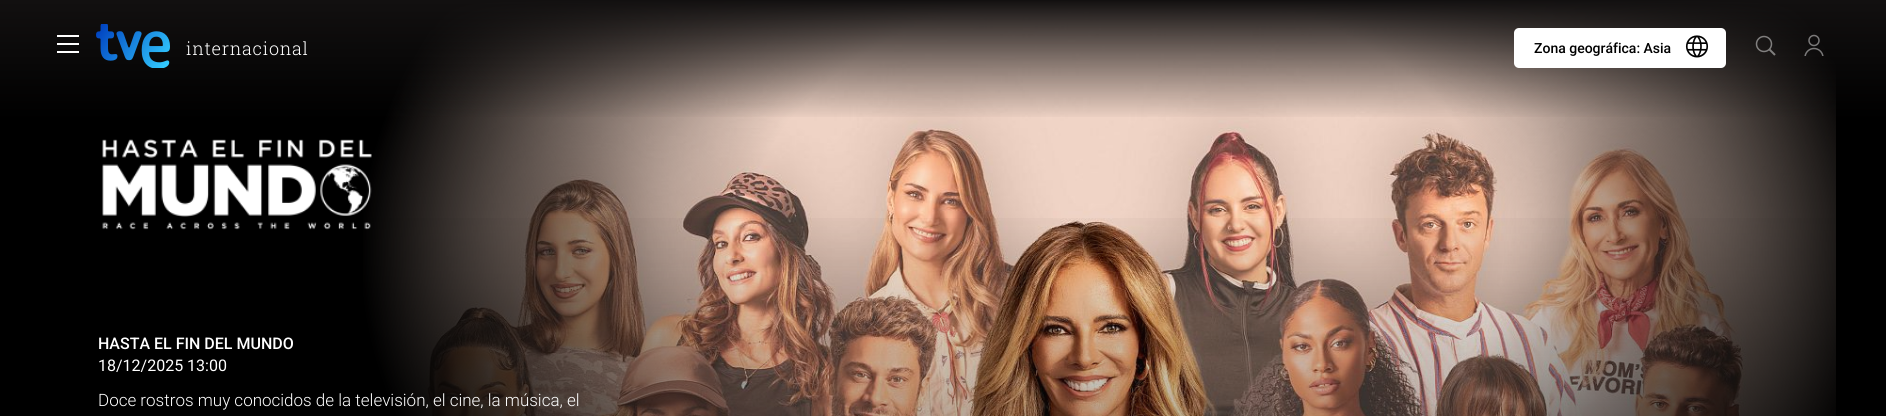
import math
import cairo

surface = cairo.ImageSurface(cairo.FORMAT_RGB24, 1886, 416)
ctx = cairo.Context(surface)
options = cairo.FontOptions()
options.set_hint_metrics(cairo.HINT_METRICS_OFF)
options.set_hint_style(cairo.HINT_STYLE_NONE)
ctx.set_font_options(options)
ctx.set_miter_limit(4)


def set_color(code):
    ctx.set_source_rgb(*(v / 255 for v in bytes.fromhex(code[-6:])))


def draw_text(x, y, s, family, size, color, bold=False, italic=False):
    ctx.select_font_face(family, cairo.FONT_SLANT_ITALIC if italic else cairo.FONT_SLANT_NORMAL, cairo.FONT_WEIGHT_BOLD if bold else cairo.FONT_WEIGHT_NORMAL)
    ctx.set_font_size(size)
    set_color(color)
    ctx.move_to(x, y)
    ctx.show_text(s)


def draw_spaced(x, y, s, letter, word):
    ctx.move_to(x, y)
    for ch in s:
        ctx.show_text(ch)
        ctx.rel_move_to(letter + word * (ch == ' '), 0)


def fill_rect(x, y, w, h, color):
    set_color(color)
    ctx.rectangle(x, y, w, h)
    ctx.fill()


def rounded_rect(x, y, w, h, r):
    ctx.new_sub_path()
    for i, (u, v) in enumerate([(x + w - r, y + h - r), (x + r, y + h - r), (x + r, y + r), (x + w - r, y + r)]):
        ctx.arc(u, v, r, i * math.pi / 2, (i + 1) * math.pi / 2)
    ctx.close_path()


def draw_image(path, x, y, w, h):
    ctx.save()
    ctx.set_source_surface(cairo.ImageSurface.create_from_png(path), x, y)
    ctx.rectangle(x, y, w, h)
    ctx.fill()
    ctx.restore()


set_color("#000000")
ctx.paint()
draw_image("assets/img4.png", 363, 1, 1473, 415)
gradient = cairo.LinearGradient(943, 1, 943, 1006)
gradient.add_color_stop_rgba(0.2, 0.067, 0.067, 0.067, 0)
gradient.add_color_stop_rgba(0.8, 0.067, 0.067, 0.067, 0.8)
ctx.set_source(gradient)
ctx.rectangle(363, 218, 1473, 198)
ctx.fill()
gradient = cairo.RadialGradient(0, 0, 0, 0, 0, 1)
gradient.set_matrix(cairo.Matrix(1 / 1515, 0, 0, 1 / 1066, -1 * 1122 / 1515, -1 * 252 / 1066))
gradient.add_color_stop_rgba(0.25, 0, 0, 0, 0)
gradient.add_color_stop_rgba(0.5, 0, 0, 0, 1)
ctx.set_source(gradient)
ctx.rectangle(363, 1, 1473, 415)
ctx.fill()
gradient = cairo.LinearGradient(943, 0, 943, 120)
gradient.add_color_stop_rgba(0, 0.071, 0.063, 0.063, 1)
gradient.add_color_stop_rgba(1, 0.071, 0.063, 0.063, 0)
ctx.set_source(gradient)
ctx.rectangle(0, 0, 1886, 117)
ctx.fill()
fill_rect(57, 35, 22, 2, "#ffffff")
fill_rect(57, 43, 22, 2, "#ffffff")
fill_rect(57, 51, 22, 2, "#ffffff")
draw_image("assets/img1.png", 96, 24, 74, 44)
ctx.select_font_face("Roboto Slab Light")
ctx.set_font_size(18)
draw_spaced(186, 55, "internacional", 0.7, 0)
ctx.new_path()
ctx.arc(1764, 44, 7.5, 0, 2 * math.pi)
ctx.set_source_rgba(1, 1, 1, 0.45)
ctx.set_line_width(1.5)
ctx.stroke()
ctx.new_path()
ctx.move_to(1769.5, 49.5)
ctx.line_to(1775, 55)
set_color("#807f7e")
ctx.set_line_width(2)
ctx.stroke()
draw_image("assets/img2.png", 1804, 34, 20, 22)
set_color("#ffffff")
rounded_rect(1514, 28, 212, 40, 5)
ctx.fill()
draw_image("assets/img3.png", 1685, 35, 24, 23)
draw_text(1534, 53, "Zona geográfica: Asia", "Roboto Medium", 14, "#000000")
draw_image("assets/img5.png", 102, 139, 270, 91)
draw_text(98, 349, "HASTA EL FIN DEL MUNDO", "Roboto Medium", 16, "#ffffff")
draw_text(98, 371, "18/12/2025 13:00", "Roboto", 16, "#ffffff")
draw_text(98, 406, "Doce rostros muy conocidos de la televisión, el cine, la música, el", "Roboto Light", 17, "#ffffff")
surface.write_to_png("output.png")
